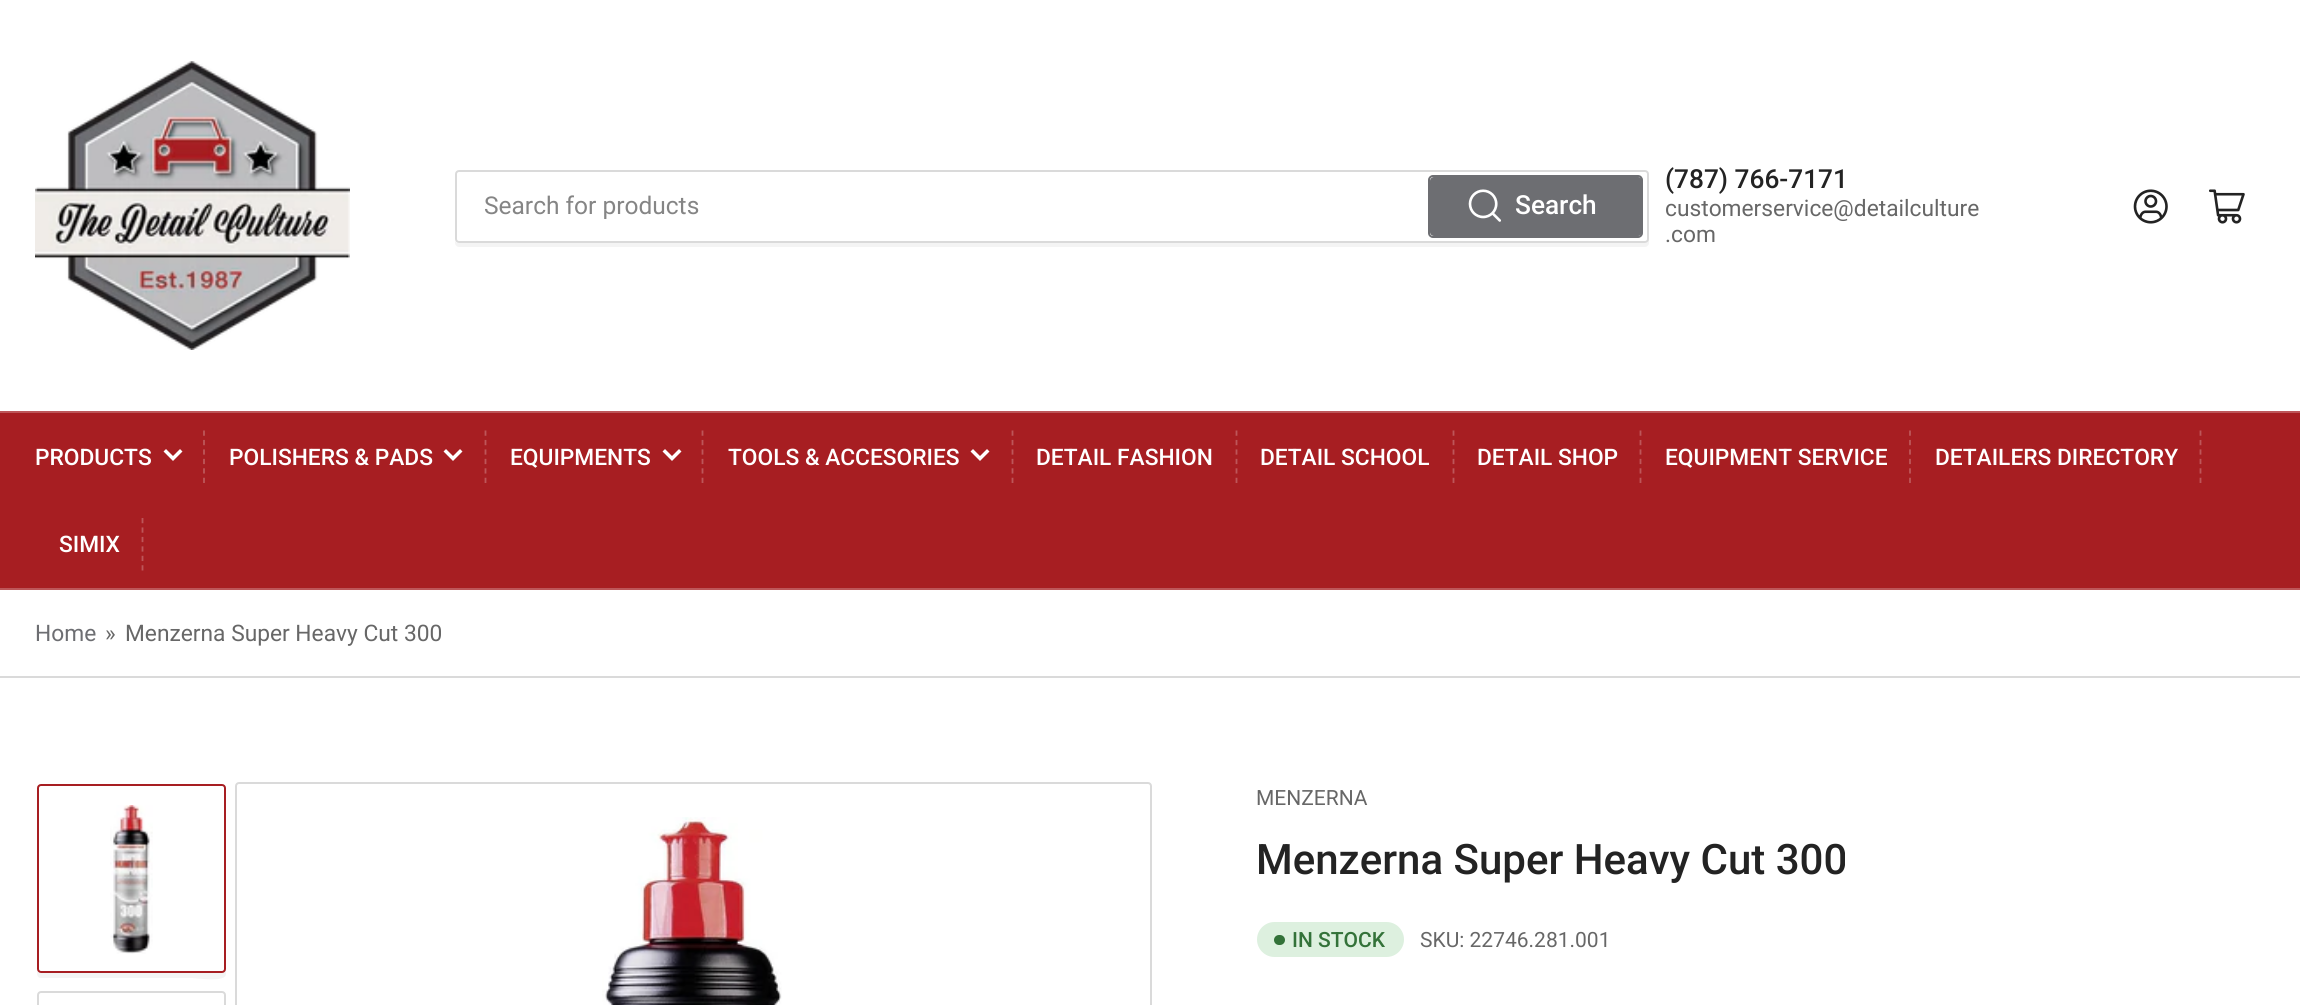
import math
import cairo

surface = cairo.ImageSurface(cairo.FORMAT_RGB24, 2300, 1005)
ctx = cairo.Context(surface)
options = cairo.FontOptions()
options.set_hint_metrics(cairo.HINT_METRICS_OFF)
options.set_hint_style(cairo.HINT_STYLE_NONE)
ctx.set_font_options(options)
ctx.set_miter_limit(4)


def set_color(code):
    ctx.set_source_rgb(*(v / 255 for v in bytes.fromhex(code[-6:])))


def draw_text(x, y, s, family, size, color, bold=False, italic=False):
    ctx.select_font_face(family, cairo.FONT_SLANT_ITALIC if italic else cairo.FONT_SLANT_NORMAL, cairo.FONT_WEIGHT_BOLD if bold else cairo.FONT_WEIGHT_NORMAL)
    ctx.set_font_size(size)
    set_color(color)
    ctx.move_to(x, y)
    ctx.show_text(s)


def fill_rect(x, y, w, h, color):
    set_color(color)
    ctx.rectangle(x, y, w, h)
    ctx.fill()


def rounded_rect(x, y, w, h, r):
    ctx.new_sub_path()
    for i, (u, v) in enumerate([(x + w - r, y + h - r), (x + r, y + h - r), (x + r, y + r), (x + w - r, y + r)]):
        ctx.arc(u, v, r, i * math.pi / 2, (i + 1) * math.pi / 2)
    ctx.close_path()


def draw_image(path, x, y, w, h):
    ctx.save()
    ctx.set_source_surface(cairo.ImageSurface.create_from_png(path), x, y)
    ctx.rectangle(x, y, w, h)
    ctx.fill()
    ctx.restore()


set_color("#ffffff")
ctx.paint()
draw_image("assets/img1.png", 35, 61, 315, 289)
set_color("#f4f4f4")
ctx.new_path()
ctx.move_to(455, 240)
ctx.line_to(455, 243)
ctx.curve_to(455, 245, 457, 247, 459, 247)
ctx.line_to(1645, 247)
ctx.curve_to(1647, 247, 1649, 245, 1649, 243)
ctx.line_to(1649, 177)
ctx.line_to(1648, 175)
ctx.line_to(1648, 240)
ctx.curve_to(1648, 242, 1647, 243, 1645, 243)
ctx.line_to(458, 243)
ctx.curve_to(457, 243, 455, 242, 455, 240)
ctx.close_path()
ctx.fill()
set_color("#ffffff")
rounded_rect(456, 171, 1192, 71, 3)
ctx.fill_preserve()
set_color("#dadada")
ctx.stroke()
draw_text(484, 214, "Search for products", "Roboto", 24.5, "#858585")
rounded_rect(1429, 176, 213, 61, 4)
set_color("#6d6e72")
ctx.stroke()
rounded_rect(1430, 177, 212, 59, 4)
ctx.fill()
draw_image("assets/img2.png", 1468, 189, 33, 33)
draw_text(1515, 214, "Search", "Roboto Medium", 26.25, "#ffffff")
draw_text(1665, 188, "(787) 766-7171", "Roboto Medium", 26.25, "#232323")
draw_text(1665, 216, "customerservice@detailculture", "Roboto", 22.75, "#676767")
draw_text(1665, 242, ".com", "Roboto", 22.75, "#676767")
draw_image("assets/img3.png", 2133, 189, 35, 35)
draw_image("assets/img4.png", 2209, 189, 36, 35)
fill_rect(0, 413, 2300, 175, "#a71e22")
fill_rect(0, 411, 2300, 2, "#bd5659")
fill_rect(0, 588, 2300, 2, "#bd5659")
draw_text(35, 465, "PRODUCTS", "Roboto Medium", 22.75, "#ffffff")
ctx.new_path()
ctx.move_to(180, 451.5)
ctx.line_to(173, 458.5)
ctx.line_to(166, 451.5)
ctx.set_line_width(3.5)
ctx.set_line_cap(cairo.LINE_CAP_SQUARE)
ctx.stroke()
ctx.new_path()
ctx.move_to(204, 430.5)
ctx.line_to(204, 483)
set_color("#bd5659")
ctx.set_line_width(1.8)
ctx.set_line_cap(cairo.LINE_CAP_BUTT)
ctx.set_dash([5.25, 4.2])
ctx.stroke()
draw_text(229, 465, "POLISHERS & PADS", "Roboto Medium", 22.75, "#ffffff")
ctx.new_path()
ctx.move_to(460, 451.5)
ctx.line_to(453, 458.5)
ctx.line_to(446, 451.5)
ctx.set_line_width(3.5)
ctx.set_line_cap(cairo.LINE_CAP_SQUARE)
ctx.set_dash([])
ctx.stroke()
ctx.new_path()
ctx.move_to(485.5, 430.5)
ctx.line_to(485.5, 483)
set_color("#bd5659")
ctx.set_line_width(1.8)
ctx.set_line_cap(cairo.LINE_CAP_BUTT)
ctx.set_dash([5.25, 4.2])
ctx.stroke()
draw_text(510, 465, "EQUIPMENTS", "Roboto Medium", 22.75, "#ffffff")
ctx.new_path()
ctx.move_to(679, 451.5)
ctx.line_to(672, 458.5)
ctx.line_to(665, 451.5)
ctx.set_line_width(3.5)
ctx.set_line_cap(cairo.LINE_CAP_SQUARE)
ctx.set_dash([])
ctx.stroke()
ctx.new_path()
ctx.move_to(702.5, 430.5)
ctx.line_to(702.5, 483)
set_color("#bd5659")
ctx.set_line_width(1.8)
ctx.set_line_cap(cairo.LINE_CAP_BUTT)
ctx.set_dash([5.25, 4.2])
ctx.stroke()
draw_text(728, 465, "TOOLS & ACCESORIES", "Roboto Medium", 22.75, "#ffffff")
ctx.new_path()
ctx.move_to(987, 451.5)
ctx.line_to(980, 458.5)
ctx.line_to(973, 451.5)
ctx.set_line_width(3.5)
ctx.set_line_cap(cairo.LINE_CAP_SQUARE)
ctx.set_dash([])
ctx.stroke()
ctx.new_path()
ctx.move_to(1012.5, 430.5)
ctx.line_to(1012.5, 483)
set_color("#bd5659")
ctx.set_line_width(1.8)
ctx.set_line_cap(cairo.LINE_CAP_BUTT)
ctx.set_dash([5.25, 4.2])
ctx.stroke()
draw_text(1036, 465, "DETAIL FASHION", "Roboto Medium", 22.75, "#ffffff")
ctx.new_path()
ctx.move_to(1236.5, 430.5)
ctx.line_to(1236.5, 483)
set_color("#bd5659")
ctx.stroke()
draw_text(1260, 465, "DETAIL SCHOOL", "Roboto Medium", 22.75, "#ffffff")
ctx.new_path()
ctx.move_to(1453.5, 430.5)
ctx.line_to(1453.5, 483)
set_color("#bd5659")
ctx.stroke()
draw_text(1477, 465, "DETAIL SHOP", "Roboto Medium", 22.75, "#ffffff")
ctx.new_path()
ctx.move_to(1640.5, 430.5)
ctx.line_to(1640.5, 483)
set_color("#bd5659")
ctx.stroke()
draw_text(1665, 465, "EQUIPMENT SERVICE", "Roboto Medium", 22.75, "#ffffff")
ctx.new_path()
ctx.move_to(1910, 430.5)
ctx.line_to(1910, 483)
set_color("#bd5659")
ctx.stroke()
draw_text(1935, 465, "DETAILERS DIRECTORY", "Roboto Medium", 22.75, "#ffffff")
ctx.new_path()
ctx.move_to(2200.5, 430.5)
ctx.line_to(2200.5, 483)
set_color("#bd5659")
ctx.stroke()
draw_text(59, 552, "SIMIX", "Roboto Medium", 22.75, "#ffffff")
ctx.new_path()
ctx.move_to(142.5, 518)
ctx.line_to(142.5, 570.5)
set_color("#bd5659")
ctx.stroke()
fill_rect(0, 676, 2300, 2, "#dadada")
draw_text(35, 641, "Home", "Roboto", 22.75, "#6d6e72")
draw_text(105, 641, "»", "Roboto", 22.75, "#676767")
draw_text(125, 641, "Menzerna Super Heavy Cut 300", "Roboto", 22.75, "#676767")
set_color("#f4f4f4")
ctx.new_path()
ctx.move_to(37, 971)
ctx.curve_to(37, 974, 37, 978, 41, 978)
ctx.line_to(192, 978)
ctx.curve_to(196, 978, 226, 983, 226, 974)
ctx.line_to(226, 792)
ctx.line_to(226, 970)
ctx.curve_to(226, 971, 224, 973, 222, 973)
ctx.line_to(40, 973)
ctx.curve_to(39, 973, 38, 972, 37, 971)
ctx.close_path()
ctx.fill()
set_color("#ffffff")
rounded_rect(38, 785, 187, 187, 3)
ctx.fill_preserve()
set_color("#a71e22")
ctx.set_line_width(2)
ctx.set_dash([])
ctx.stroke()
draw_image("assets/img5.png", 110, 805, 43, 149)
rounded_rect(38, 992, 187, 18, 3)
set_color("#dadada")
ctx.stroke()
rounded_rect(236, 783, 915, 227, 3)
ctx.stroke()
draw_image("assets/img6.png", 602, 817, 180, 188)
draw_text(1256, 805, "MENZERNA", "Roboto", 21, "#676767")
draw_text(1256, 874, "Menzerna Super Heavy Cut 300", "Roboto Medium", 42, "#232323")
set_color("#ddf0df")
rounded_rect(1257, 922, 147, 35, 17.5)
ctx.fill()
set_color("#337239")
rounded_rect(1274, 935, 11, 10, 5)
ctx.fill()
draw_text(1292, 947, "IN STOCK", "Roboto Medium", 21, "#337239")
draw_text(1420, 947, "SKU: 22746.281.001", "Roboto", 21, "#676767")
surface.write_to_png("output.png")
